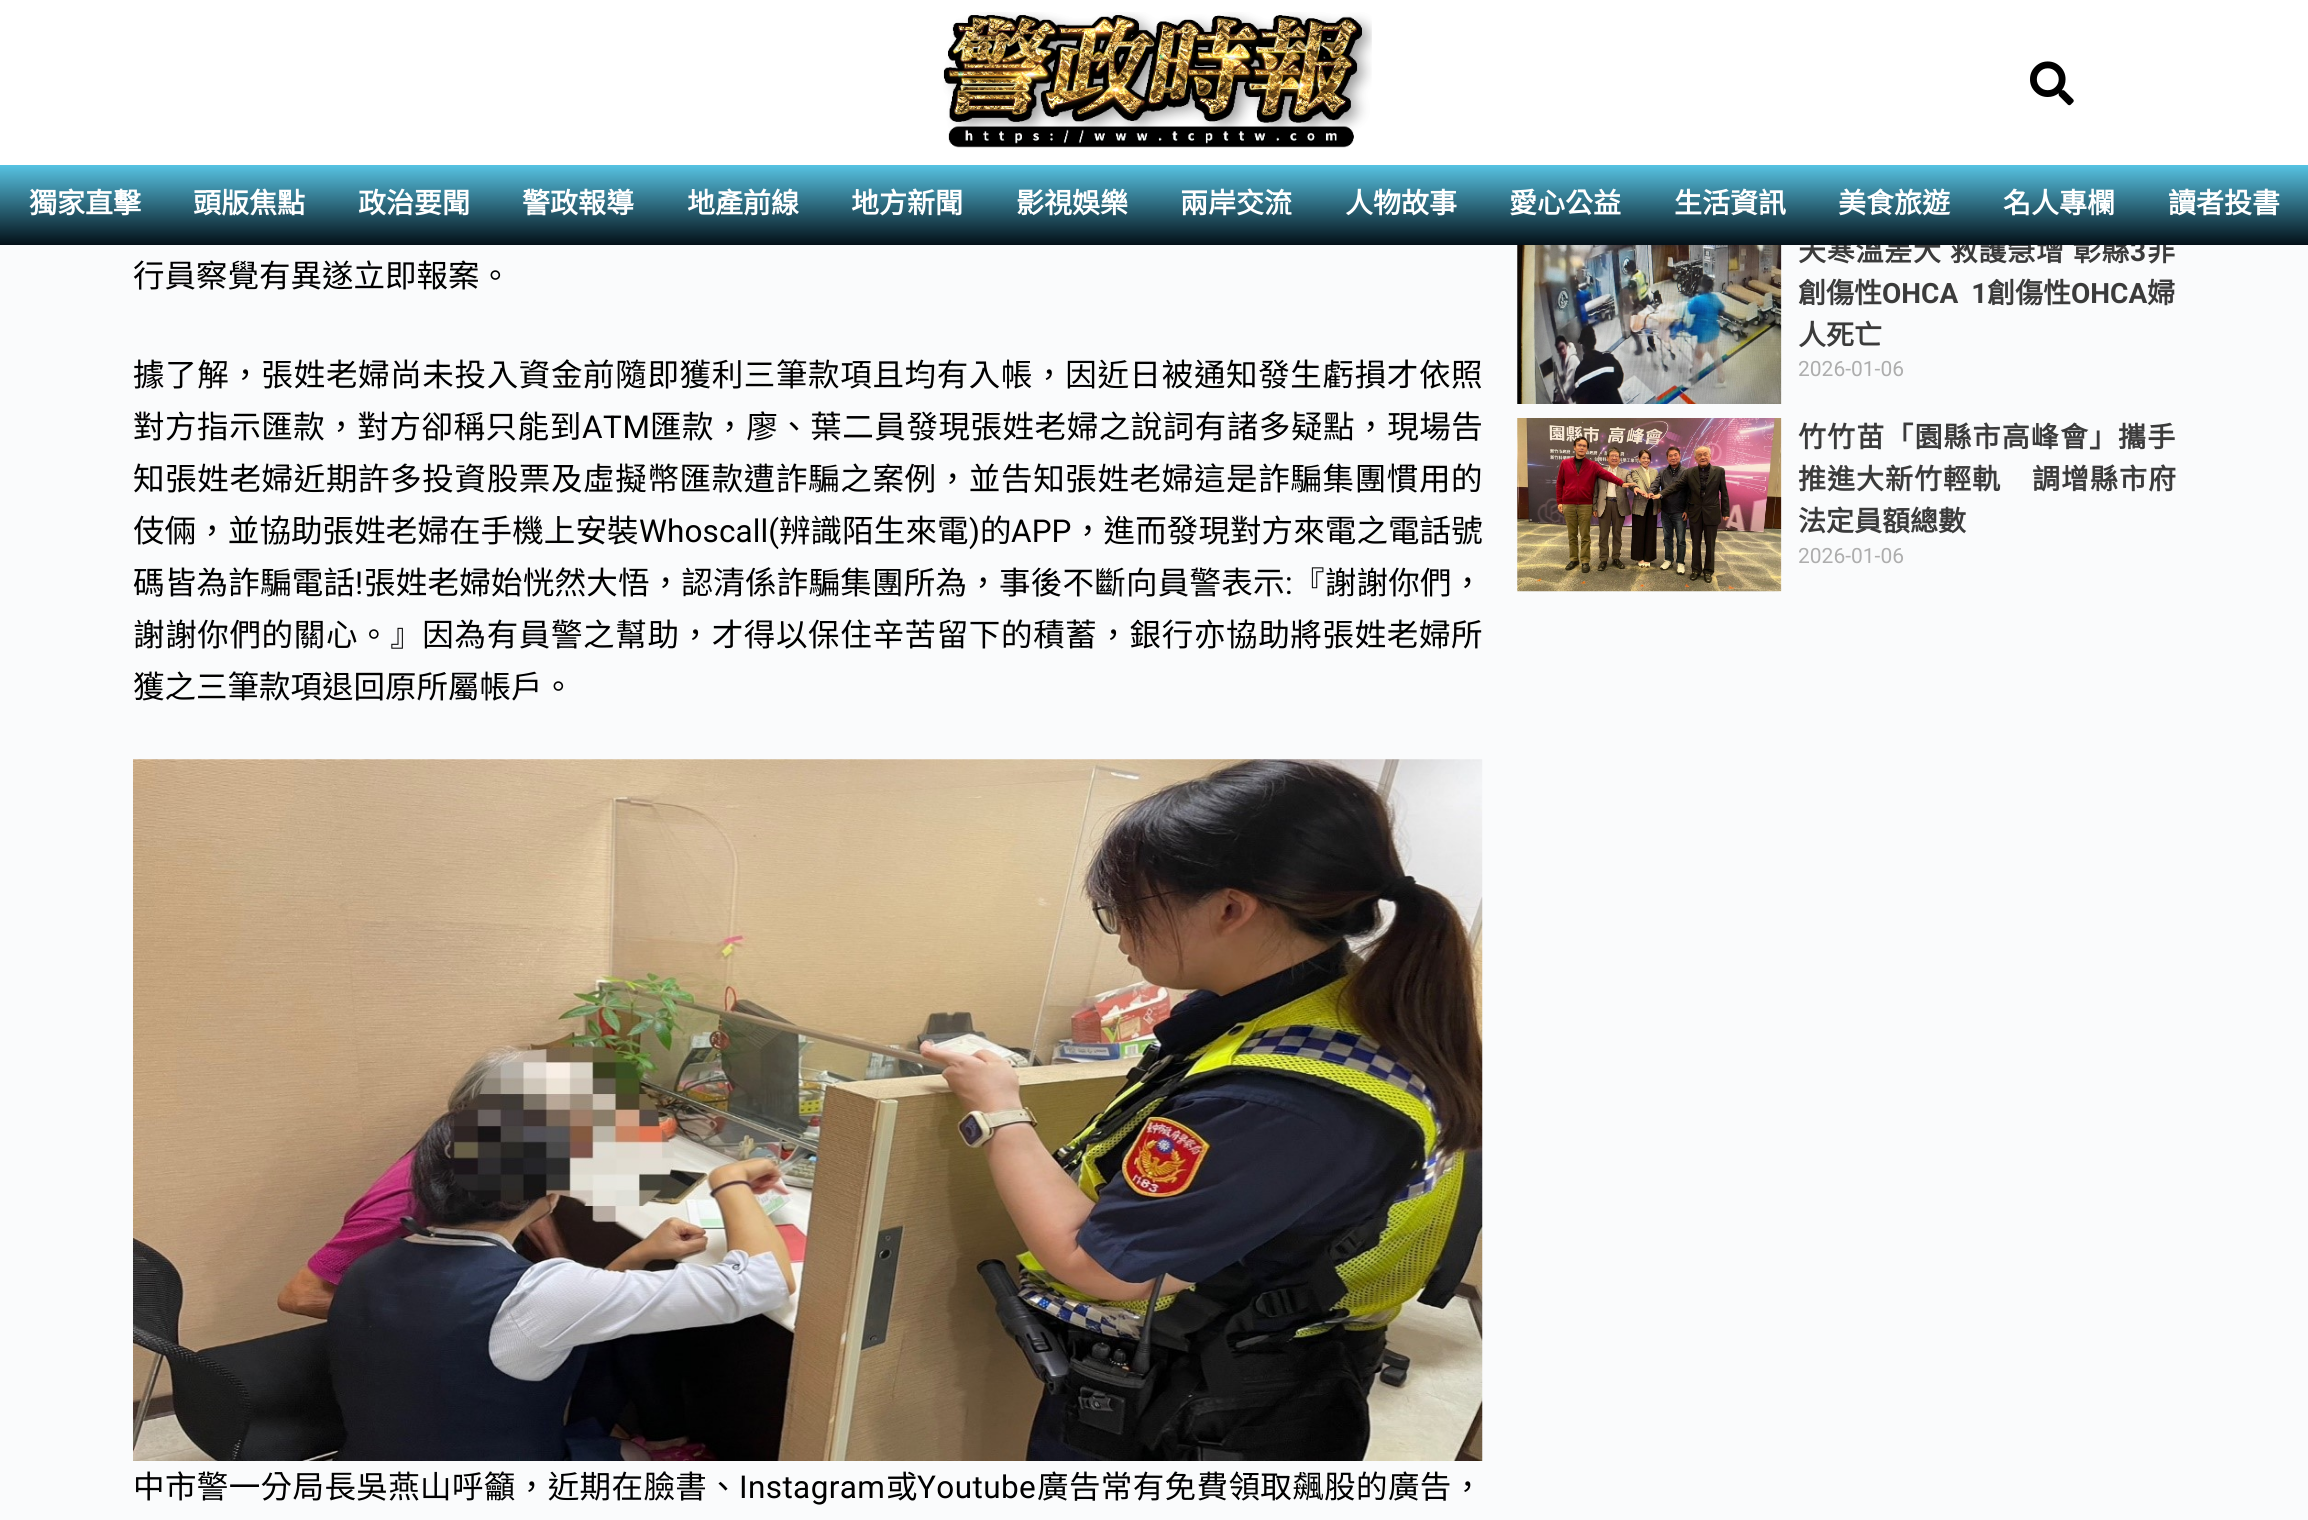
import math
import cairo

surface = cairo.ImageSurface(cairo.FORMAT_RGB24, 2308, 1520)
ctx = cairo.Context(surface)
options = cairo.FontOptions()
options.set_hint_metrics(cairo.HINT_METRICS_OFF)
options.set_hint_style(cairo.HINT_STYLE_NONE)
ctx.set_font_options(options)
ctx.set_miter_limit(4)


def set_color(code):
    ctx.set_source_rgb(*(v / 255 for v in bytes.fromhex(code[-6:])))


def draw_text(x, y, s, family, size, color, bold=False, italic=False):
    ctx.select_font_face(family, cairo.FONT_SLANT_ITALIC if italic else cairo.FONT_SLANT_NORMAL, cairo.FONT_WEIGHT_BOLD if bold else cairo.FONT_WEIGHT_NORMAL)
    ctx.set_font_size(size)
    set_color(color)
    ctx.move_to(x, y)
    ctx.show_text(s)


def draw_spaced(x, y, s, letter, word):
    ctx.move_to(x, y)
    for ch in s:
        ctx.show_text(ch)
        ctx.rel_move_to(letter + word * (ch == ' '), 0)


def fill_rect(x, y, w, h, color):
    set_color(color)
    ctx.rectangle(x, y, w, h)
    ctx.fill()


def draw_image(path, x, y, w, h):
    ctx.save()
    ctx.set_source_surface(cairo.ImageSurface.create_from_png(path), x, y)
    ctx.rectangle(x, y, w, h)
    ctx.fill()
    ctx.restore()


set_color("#fafbfc")
ctx.paint()
fill_rect(0, 0, 2308, 165, "#ffffff")
draw_image("assets/img1.png", 943, 12, 429, 136)
draw_image("assets/img2.png", 2030, 61, 44, 45)
ctx.select_font_face("Noto Sans CJK TC", cairo.FONT_SLANT_NORMAL, cairo.FONT_WEIGHT_BOLD)
ctx.set_font_size(28)
set_color("#3b3b3b")
draw_spaced(1798, 261, "天寒溫差大 救護急增 彰縣", 0.75, 1)
ctx.select_font_face("Roboto", cairo.FONT_SLANT_NORMAL, cairo.FONT_WEIGHT_BOLD)
draw_spaced(2130, 261, "3", 0.75, 0)
ctx.select_font_face("Noto Sans CJK TC", cairo.FONT_SLANT_NORMAL, cairo.FONT_WEIGHT_BOLD)
draw_spaced(2147, 261, "非", 0.75, 0)
gradient = cairo.LinearGradient(1154, 164, 1154, 245)
gradient.add_color_stop_rgba(0, 0.345, 0.773, 0.898, 1)
gradient.add_color_stop_rgba(1, 0.012, 0.063, 0.094, 1)
ctx.set_source(gradient)
ctx.rectangle(0, 165, 2308, 80)
ctx.fill()
draw_text(29, 213, "獨家直擊", "Noto Sans CJK TC", 28, "#ffffff", bold=True)
draw_text(193, 213, "頭版焦點", "Noto Sans CJK TC", 28, "#ffffff", bold=True)
draw_text(358, 213, "政治要聞", "Noto Sans CJK TC", 28, "#ffffff", bold=True)
draw_text(522, 213, "警政報導", "Noto Sans CJK TC", 28, "#ffffff", bold=True)
draw_text(687, 213, "地產前線", "Noto Sans CJK TC", 28, "#ffffff", bold=True)
draw_text(851, 213, "地方新聞", "Noto Sans CJK TC", 28, "#ffffff", bold=True)
draw_text(1016, 213, "影視娛樂", "Noto Sans CJK TC", 28, "#ffffff", bold=True)
draw_text(1180, 213, "兩岸交流", "Noto Sans CJK TC", 28, "#ffffff", bold=True)
draw_text(1345, 213, "人物故事", "Noto Sans CJK TC", 28, "#ffffff", bold=True)
draw_text(1509, 213, "愛心公益", "Noto Sans CJK TC", 28, "#ffffff", bold=True)
draw_text(1674, 213, "生活資訊", "Noto Sans CJK TC", 28, "#ffffff", bold=True)
draw_text(1838, 213, "美食旅遊", "Noto Sans CJK TC", 28, "#ffffff", bold=True)
draw_text(2003, 213, "名人專欄", "Noto Sans CJK TC", 28, "#ffffff", bold=True)
draw_text(2168, 213, "讀者投書", "Noto Sans CJK TC", 28, "#ffffff", bold=True)
draw_text(133, 287, "行員察覺有異遂立即報案。", "Noto Sans CJK TC", 31.5, "#000000")
draw_spaced(133, 386, "據了解，張姓老婦尚未投入資金前隨即獲利三筆款項且均有入帳，因近日被通知發生虧損才依照", 0.65, 0)
draw_spaced(133, 438, "對方指示匯款，對方卻稱只能到", 0.55, 0)
ctx.select_font_face("Roboto")
draw_spaced(582, 438, "ATM", 0.55, 0)
ctx.select_font_face("Noto Sans CJK TC")
draw_spaced(650, 438, "匯款，廖、葉二員發現張姓老婦之說詞有諸多疑點，現場告", 0.55, 0)
draw_spaced(133, 490, "知張姓老婦近期許多投資股票及虛擬幣匯款遭詐騙之案例，並告知張姓老婦這是詐騙集團慣用的", 0.65, 0)
draw_spaced(133, 542, "伎倆，並協助張姓老婦在手機上安裝", 0.1, 0)
ctx.select_font_face("Roboto")
draw_spaced(639, 542, "Whoscall(", 0.1, 0)
ctx.select_font_face("Noto Sans CJK TC")
draw_spaced(779, 542, "辨識陌生來電", 0.1, 0)
ctx.select_font_face("Roboto")
draw_spaced(969, 542, ")", 0.1, 0)
ctx.select_font_face("Noto Sans CJK TC")
draw_spaced(980, 542, "的", 0.1, 0)
ctx.select_font_face("Roboto")
draw_spaced(1011, 542, "APP", 0.1, 0)
ctx.select_font_face("Noto Sans CJK TC")
draw_spaced(1072, 542, "，進而發現對方來電之電話號", 0.1, 0)
draw_spaced(133, 594, "碼皆為詐騙電話", 0.25, 0)
ctx.select_font_face("Roboto")
draw_spaced(355, 594, "!", 0.25, 0)
ctx.select_font_face("Noto Sans CJK TC")
draw_spaced(364, 594, "張姓老婦始恍然大悟，認清係詐騙集團所為，事後不斷向員警表示", 0.25, 0)
ctx.select_font_face("Roboto")
draw_spaced(1285, 594, ":", 0.25, 0)
ctx.select_font_face("Noto Sans CJK TC")
draw_spaced(1293, 594, "『謝謝你們，", 0.25, 0)
draw_spaced(133, 646, "謝謝你們的關心。』因為有員警之幫助，才得以保住辛苦留下的積蓄，銀行亦協助將張姓老婦所", 0.65, 0)
draw_text(133, 698, "獲之三筆款項退回原所屬帳戶。", "Noto Sans CJK TC", 31.5, "#000000")
draw_image("assets/img3.png", 133, 759, 1350, 702)
draw_spaced(133, 1498, "中市警一分局長吳燕山呼籲，近期在臉書、", 0.4, 0)
ctx.select_font_face("Roboto")
draw_spaced(739, 1498, "Instagram", 0.4, 0)
ctx.select_font_face("Noto Sans CJK TC")
draw_spaced(886, 1498, "或", 0.4, 0)
ctx.select_font_face("Roboto")
draw_spaced(917, 1498, "Youtube", 0.4, 0)
ctx.select_font_face("Noto Sans CJK TC")
draw_spaced(1037, 1498, "廣告常有免費領取飆股的廣告，", 0.4, 0)
draw_image("assets/img4.png", 1517, 245, 265, 159)
draw_text(1798, 303, "創傷性", "Noto Sans CJK TC", 28, "#3b3b3b", bold=True)
ctx.select_font_face("Roboto", cairo.FONT_SLANT_NORMAL, cairo.FONT_WEIGHT_BOLD)
draw_spaced(1882, 303, "OHCA 1", 0, 6)
draw_text(1987, 303, "創傷性", "Noto Sans CJK TC", 28, "#3b3b3b", bold=True)
draw_text(2071, 303, "OHCA", "Roboto", 28, "#3b3b3b", bold=True)
draw_text(2147, 303, "婦", "Noto Sans CJK TC", 28, "#3b3b3b", bold=True)
draw_text(1798, 345, "人死亡", "Noto Sans CJK TC", 28, "#3b3b3b", bold=True)
draw_text(1798, 376, "2026-01-06", "Roboto", 21, "#adadad")
draw_image("assets/img5.png", 1517, 418, 265, 174)
ctx.select_font_face("Noto Sans CJK TC", cairo.FONT_SLANT_NORMAL, cairo.FONT_WEIGHT_BOLD)
ctx.set_font_size(28)
set_color("#3b3b3b")
draw_spaced(1798, 447, "竹竹苗「園縣市高峰會」攜手", 1.1, 0)
draw_spaced(1798, 489, "推進大新竹輕軌", 1, 0)
draw_spaced(2032, 489, "調增縣市府", 1, 0)
draw_text(1798, 531, "法定員額總數", "Noto Sans CJK TC", 28, "#3b3b3b", bold=True)
draw_text(1798, 563, "2026-01-06", "Roboto", 21, "#adadad")
surface.write_to_png("output.png")
